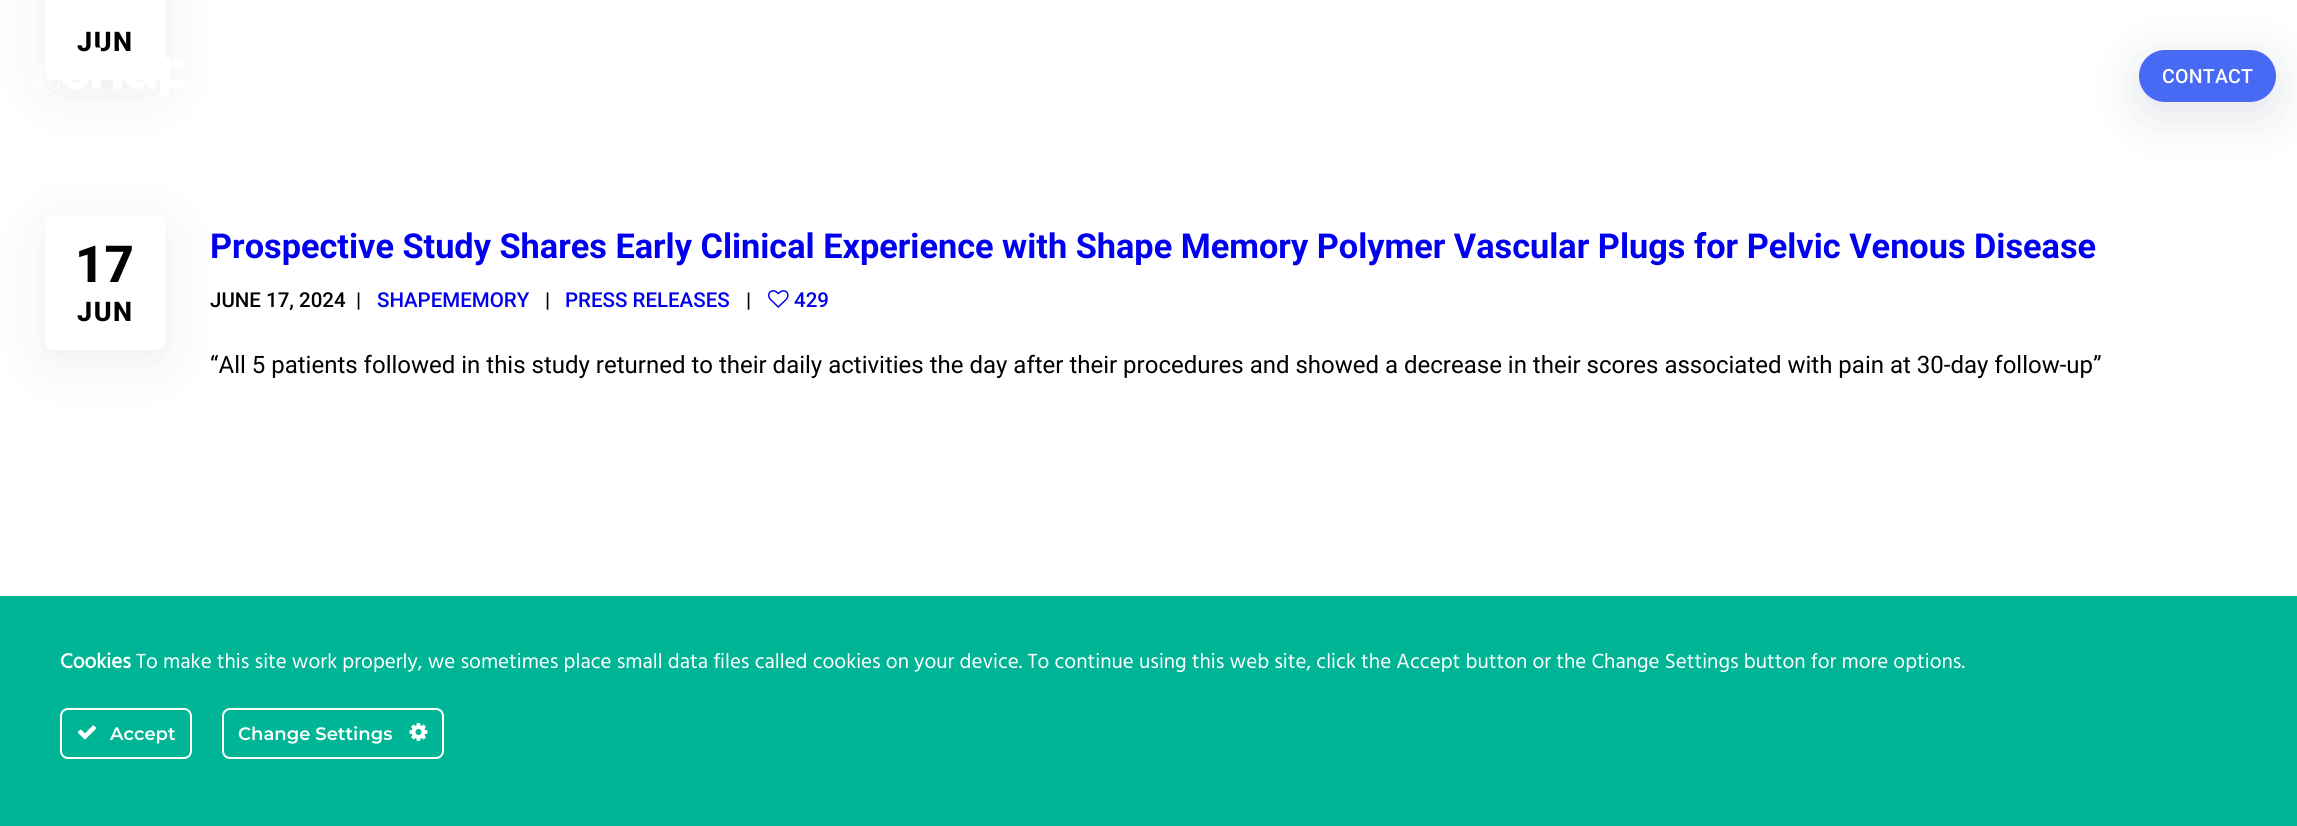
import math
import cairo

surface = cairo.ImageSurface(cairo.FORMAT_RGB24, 2297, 826)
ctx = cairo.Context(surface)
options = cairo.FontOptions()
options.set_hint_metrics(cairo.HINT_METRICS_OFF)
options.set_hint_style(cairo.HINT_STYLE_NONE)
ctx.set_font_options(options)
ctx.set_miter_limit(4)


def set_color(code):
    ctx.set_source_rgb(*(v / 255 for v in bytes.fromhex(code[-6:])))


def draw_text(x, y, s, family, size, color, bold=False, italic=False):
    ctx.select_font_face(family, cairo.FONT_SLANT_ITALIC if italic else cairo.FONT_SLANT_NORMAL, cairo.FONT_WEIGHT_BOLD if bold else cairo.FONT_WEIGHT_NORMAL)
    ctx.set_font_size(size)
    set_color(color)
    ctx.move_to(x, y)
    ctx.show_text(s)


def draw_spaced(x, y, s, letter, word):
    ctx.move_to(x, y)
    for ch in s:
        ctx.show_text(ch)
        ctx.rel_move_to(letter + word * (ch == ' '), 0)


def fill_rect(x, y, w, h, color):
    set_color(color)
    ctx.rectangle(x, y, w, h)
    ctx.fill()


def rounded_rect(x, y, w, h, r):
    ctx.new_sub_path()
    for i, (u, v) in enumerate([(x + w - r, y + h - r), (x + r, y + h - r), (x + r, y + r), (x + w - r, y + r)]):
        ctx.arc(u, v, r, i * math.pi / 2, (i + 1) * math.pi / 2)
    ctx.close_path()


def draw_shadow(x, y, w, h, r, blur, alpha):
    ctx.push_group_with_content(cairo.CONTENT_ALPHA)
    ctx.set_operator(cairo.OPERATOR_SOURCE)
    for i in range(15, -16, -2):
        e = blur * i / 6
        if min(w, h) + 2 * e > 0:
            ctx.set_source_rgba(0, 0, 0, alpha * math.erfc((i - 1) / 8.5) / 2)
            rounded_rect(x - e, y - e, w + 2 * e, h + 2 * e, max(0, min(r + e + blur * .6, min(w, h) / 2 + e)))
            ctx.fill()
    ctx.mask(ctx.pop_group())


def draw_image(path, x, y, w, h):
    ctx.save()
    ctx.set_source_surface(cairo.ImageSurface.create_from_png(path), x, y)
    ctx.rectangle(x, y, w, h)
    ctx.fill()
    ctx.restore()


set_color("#ffffff")
ctx.paint()
set_color("#091f43")
draw_shadow(53, -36, 105, 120, 1.5, 30, 0.1)
set_color("#ffffff")
rounded_rect(45, -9, 120, 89, 9)
ctx.fill()
ctx.select_font_face("Roboto ExtraBold")
ctx.set_font_size(27)
set_color("#000000")
draw_spaced(77, 51, "JUN", 1.5, 0)
set_color("#091f43")
draw_shadow(53, 234, 105, 120, 1.5, 30, 0.1)
set_color("#ffffff")
rounded_rect(45, 215, 120, 135, 9)
ctx.fill()
draw_text(75, 282, "17", "Roboto ExtraBold", 51, "#000000")
ctx.set_font_size(27)
draw_spaced(77, 321, "JUN", 1.5, 0)
draw_text(210, 258, "Prospective Study Shares Early Clinical Experience with Shape Memory Polymer Vascular Plugs for Pelvic Venous Disease", "Roboto", 34.3, "#0000ee", bold=True)
draw_text(210, 307, "JUNE 17, 2024", "Roboto Medium", 20.5, "#000000")
draw_text(356, 307, "|", "Roboto Medium", 20.5, "#000000")
draw_text(377, 307, "SHAPEMEMORY", "Roboto Medium", 20.5, "#0000ee")
draw_text(545, 307, "|", "Roboto Medium", 20.5, "#000000")
draw_text(565, 307, "PRESS RELEASES", "Roboto Medium", 20.5, "#0000ee")
draw_text(746, 307, "|", "Roboto Medium", 20.5, "#000000")
draw_image("assets/img1.png", 768, 290, 21, 18)
draw_text(794, 307, "429", "Roboto Medium", 20.5, "#0000ee")
draw_text(210, 373, "“All 5 patients followed in this study returned to their daily activities the day after their procedures and showed a decrease in their scores associated with pain at 30-day follow-up”", "Roboto", 24, "#000000")
draw_image("assets/img2.png", 33, 47, 150, 48)
set_color("#091f43")
draw_shadow(2147, 69, 121, 38, 19, 30, 0.15)
set_color("#4869f4")
rounded_rect(2139, 50, 137, 52, 26)
ctx.fill()
ctx.select_font_face("Roboto Medium")
ctx.set_font_size(19.5)
set_color("#ffffff")
draw_spaced(2162, 83, "CONTACT", 0.25, 0)
fill_rect(0, 596, 2297, 230, "#00b595")
draw_text(60, 668, "Cookies", "Hind", 21, "#ffffff", bold=True)
draw_text(136, 668, "To make this site work properly, we sometimes place small data files called cookies on your device. To continue using this web site, click the Accept button or the Change Settings button for more options.", "Hind", 21, "#ffffff")
rounded_rect(61, 709, 130, 49, 7)
ctx.stroke()
draw_image("assets/img3.png", 77, 725, 20, 15)
draw_text(110, 740, "Accept", "Montserrat SemiBold", 18, "#ffffff")
rounded_rect(223, 709, 220, 49, 7)
ctx.stroke()
draw_text(238, 740, "Change Settings", "Montserrat SemiBold", 18, "#ffffff")
draw_image("assets/img4.png", 409, 723, 19, 18)
surface.write_to_png("output.png")
